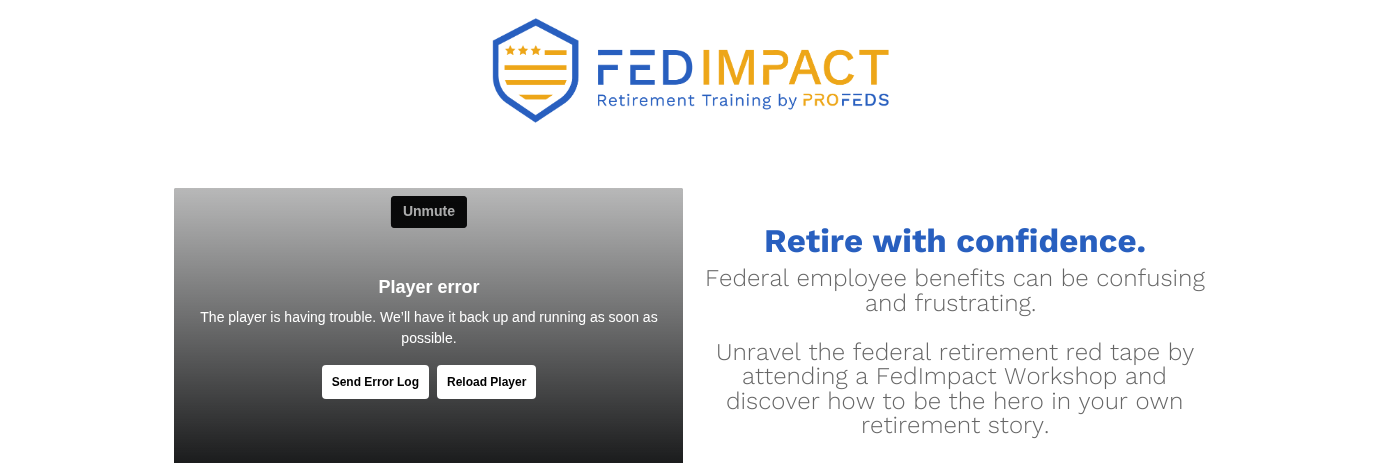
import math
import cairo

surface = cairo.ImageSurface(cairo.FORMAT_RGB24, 1383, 463)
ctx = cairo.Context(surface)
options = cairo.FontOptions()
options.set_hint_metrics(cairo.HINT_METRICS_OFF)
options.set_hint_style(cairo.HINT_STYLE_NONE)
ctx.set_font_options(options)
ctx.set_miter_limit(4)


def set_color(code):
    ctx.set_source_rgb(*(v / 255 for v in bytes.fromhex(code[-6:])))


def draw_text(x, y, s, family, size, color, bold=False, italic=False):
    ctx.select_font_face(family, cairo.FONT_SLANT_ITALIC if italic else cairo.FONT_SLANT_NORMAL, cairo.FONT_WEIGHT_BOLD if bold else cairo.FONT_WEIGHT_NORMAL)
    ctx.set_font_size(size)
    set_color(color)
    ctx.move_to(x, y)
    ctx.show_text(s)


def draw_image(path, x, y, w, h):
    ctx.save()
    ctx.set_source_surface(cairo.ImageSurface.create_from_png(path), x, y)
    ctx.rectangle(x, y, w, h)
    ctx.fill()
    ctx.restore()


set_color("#ffffff")
ctx.paint()
draw_image("assets/img1.png", 492, 18, 397, 105)
draw_image("assets/img2.png", 174, 188, 509, 275)
draw_text(764, 252, "Retire with confidence.", "Work Sans", 33, "#285fbf", bold=True)
draw_text(705, 286, "Federal employee benefits can be confusing", "Work Sans Light", 24, "#666666")
draw_text(865, 311, "and frustrating.", "Work Sans Light", 24, "#666666")
draw_text(716, 360, "Unravel the federal retirement red tape by", "Work Sans Light", 24, "#666666")
draw_text(742, 384, "attending a FedImpact Workshop and", "Work Sans Light", 24, "#666666")
draw_text(726, 409, "discover how to be the hero in your own", "Work Sans Light", 24, "#666666")
draw_text(861, 433, "retirement story.", "Work Sans Light", 24, "#666666")
surface.write_to_png("output.png")
